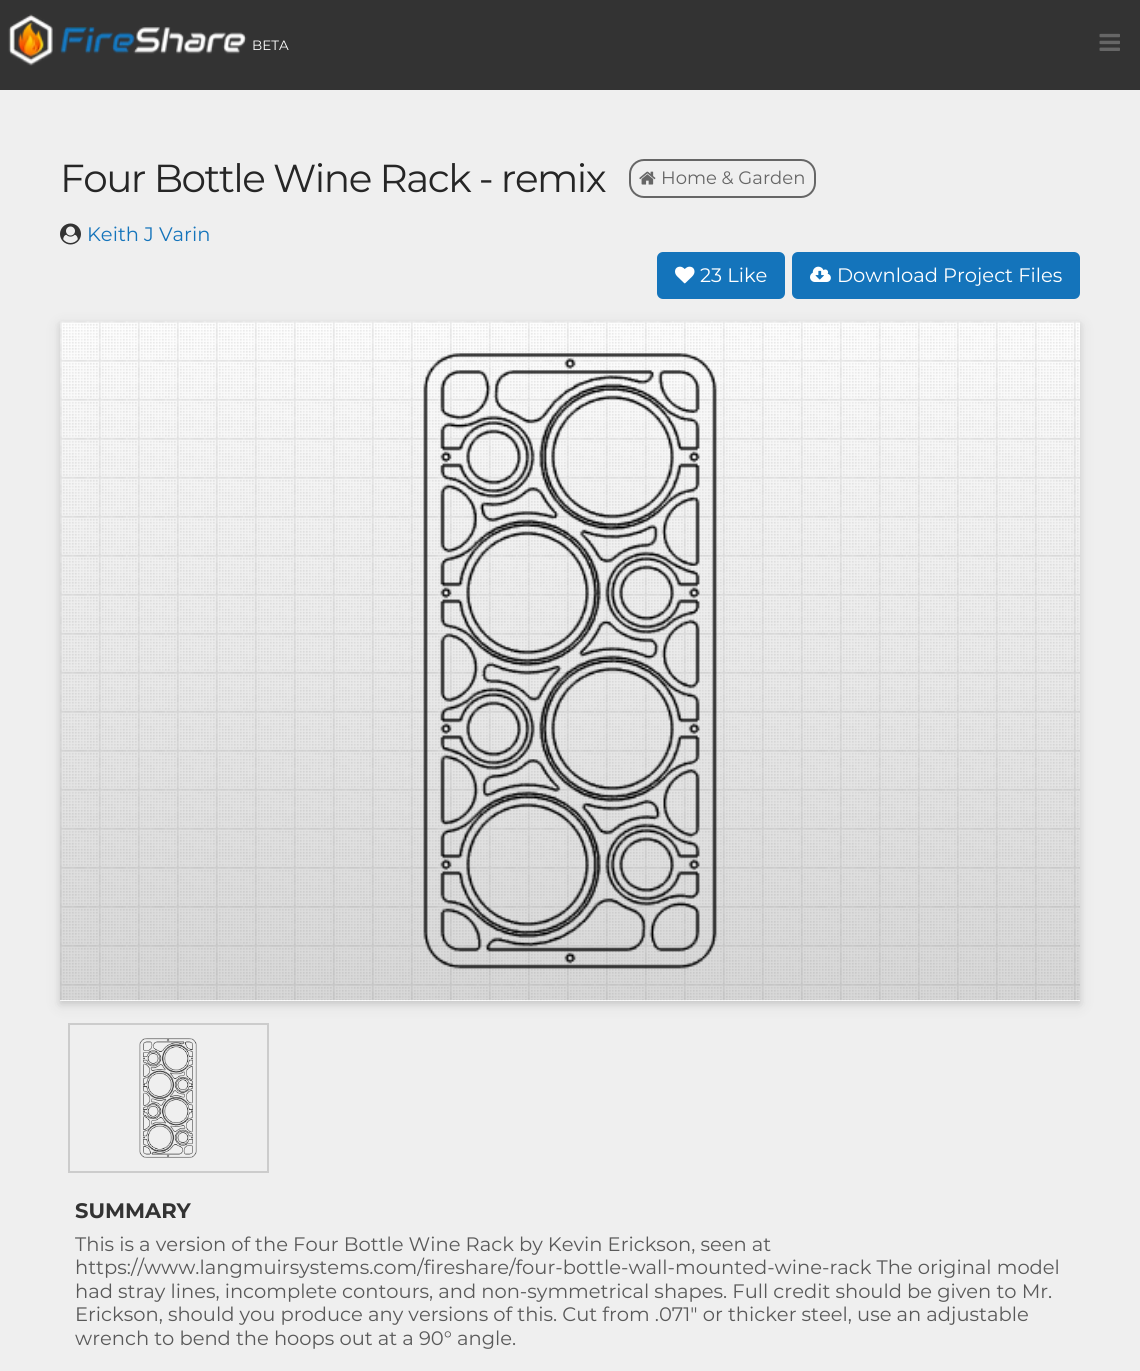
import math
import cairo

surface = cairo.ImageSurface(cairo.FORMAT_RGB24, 1140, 1371)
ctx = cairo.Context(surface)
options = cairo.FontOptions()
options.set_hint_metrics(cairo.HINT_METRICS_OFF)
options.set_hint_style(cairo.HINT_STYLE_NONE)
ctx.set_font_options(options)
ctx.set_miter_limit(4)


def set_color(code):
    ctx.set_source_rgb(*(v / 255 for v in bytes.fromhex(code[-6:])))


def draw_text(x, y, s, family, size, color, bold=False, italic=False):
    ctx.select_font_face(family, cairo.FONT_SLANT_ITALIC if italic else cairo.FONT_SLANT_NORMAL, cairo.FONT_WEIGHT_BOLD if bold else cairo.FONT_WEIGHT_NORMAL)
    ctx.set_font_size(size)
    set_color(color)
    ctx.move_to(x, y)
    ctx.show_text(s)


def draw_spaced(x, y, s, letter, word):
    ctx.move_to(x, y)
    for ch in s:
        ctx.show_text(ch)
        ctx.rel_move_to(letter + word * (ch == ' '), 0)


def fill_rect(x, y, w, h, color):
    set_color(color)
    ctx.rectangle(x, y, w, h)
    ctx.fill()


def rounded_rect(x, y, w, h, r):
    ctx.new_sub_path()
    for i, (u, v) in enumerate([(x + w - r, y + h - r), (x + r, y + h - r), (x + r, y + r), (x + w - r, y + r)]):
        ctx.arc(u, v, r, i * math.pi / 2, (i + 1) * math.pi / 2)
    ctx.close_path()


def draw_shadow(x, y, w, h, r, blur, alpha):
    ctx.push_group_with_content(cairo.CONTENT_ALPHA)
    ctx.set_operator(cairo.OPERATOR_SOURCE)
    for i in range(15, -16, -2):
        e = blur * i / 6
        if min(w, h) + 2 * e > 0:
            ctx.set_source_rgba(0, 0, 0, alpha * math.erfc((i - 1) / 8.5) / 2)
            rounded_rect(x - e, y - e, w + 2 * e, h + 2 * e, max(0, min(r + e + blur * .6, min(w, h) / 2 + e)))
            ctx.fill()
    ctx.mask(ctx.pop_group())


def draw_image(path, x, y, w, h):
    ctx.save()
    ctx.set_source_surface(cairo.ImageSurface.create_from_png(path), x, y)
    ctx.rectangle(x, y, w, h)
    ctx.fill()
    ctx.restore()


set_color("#efefef")
ctx.paint()
fill_rect(0, 0, 1140, 90, "#333333")
draw_image("assets/img1.png", 8, 14, 239, 52)
draw_text(252, 50, "BETA", "Montserrat", 13.5, "#ffffff")
draw_image("assets/img2.png", 1099, 33, 21, 18)
ctx.set_font_size(39)
set_color("#262626")
draw_spaced(60, 192, "Four Bottle Wine Rack - remix", -1.5, 0)
rounded_rect(630, 160, 185, 37, 14)
set_color("#666666")
ctx.stroke()
draw_image("assets/img3.png", 639, 171, 17, 14)
draw_text(661, 184, "Home & Garden", "Montserrat", 18, "#666666")
draw_image("assets/img4.png", 60, 223, 21, 22)
draw_text(87, 241, "Keith J Varin", "Montserrat", 19.5, "#1474bb")
rounded_rect(657, 252, 128, 47, 6)
ctx.fill()
draw_image("assets/img5.png", 675, 266, 20, 18)
draw_text(700, 282, "23 Like", "Montserrat", 19.5, "#ffffff")
set_color("#1474bb")
rounded_rect(792, 252, 288, 47, 6)
ctx.fill()
draw_image("assets/img6.png", 810, 266, 21, 16)
draw_text(837, 282, "Download Project Files", "Montserrat", 19.5, "#ffffff")
ctx.rectangle(69, 1024, 199, 148)
set_color("#cccccc")
ctx.stroke()
set_color("#000000")
draw_shadow(60, 326, 1020, 679, 0, 7.5, 0.09)
draw_shadow(60, 324, 1020, 680, 0, 3, 0.1)
fill_rect(60, 1000, 1020, 1, "#ffffff")
draw_image("assets/img7.png", 60, 321, 1020, 680)
draw_image("assets/img8.png", 423, 353, 294, 616)
draw_image("assets/img9.png", 139, 1038, 58, 120)
draw_text(75, 1218, "SUMMARY", "Montserrat", 21, "#333333", bold=True)
draw_text(75, 1251, "This is a version of the Four Bottle Wine Rack by Kevin Erickson, seen at", "Montserrat", 19.5, "#595959")
draw_text(75, 1274, "https://www.langmuirsystems.com/fireshare/four-bottle-wall-mounted-wine-rack The original model", "Montserrat", 19.5, "#595959")
draw_text(75, 1298, "had stray lines, incomplete contours, and non-symmetrical shapes. Full credit should be given to Mr.", "Montserrat", 19.5, "#595959")
draw_text(75, 1321, "Erickson, should you produce any versions of this. Cut from .071\" or thicker steel, use an adjustable", "Montserrat", 19.5, "#595959")
draw_text(75, 1345, "wrench to bend the hoops out at a 90° angle.", "Montserrat", 19.5, "#595959")
surface.write_to_png("output.png")
